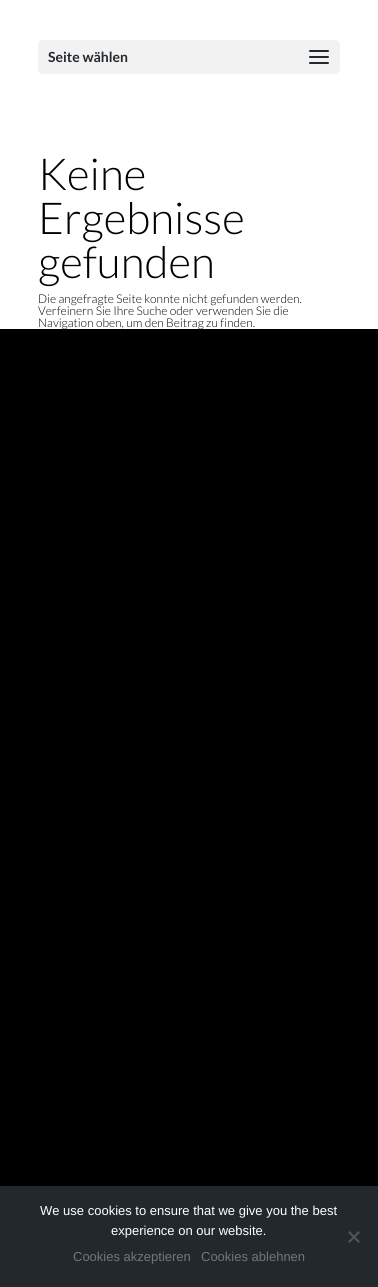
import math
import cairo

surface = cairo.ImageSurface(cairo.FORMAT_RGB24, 378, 1287)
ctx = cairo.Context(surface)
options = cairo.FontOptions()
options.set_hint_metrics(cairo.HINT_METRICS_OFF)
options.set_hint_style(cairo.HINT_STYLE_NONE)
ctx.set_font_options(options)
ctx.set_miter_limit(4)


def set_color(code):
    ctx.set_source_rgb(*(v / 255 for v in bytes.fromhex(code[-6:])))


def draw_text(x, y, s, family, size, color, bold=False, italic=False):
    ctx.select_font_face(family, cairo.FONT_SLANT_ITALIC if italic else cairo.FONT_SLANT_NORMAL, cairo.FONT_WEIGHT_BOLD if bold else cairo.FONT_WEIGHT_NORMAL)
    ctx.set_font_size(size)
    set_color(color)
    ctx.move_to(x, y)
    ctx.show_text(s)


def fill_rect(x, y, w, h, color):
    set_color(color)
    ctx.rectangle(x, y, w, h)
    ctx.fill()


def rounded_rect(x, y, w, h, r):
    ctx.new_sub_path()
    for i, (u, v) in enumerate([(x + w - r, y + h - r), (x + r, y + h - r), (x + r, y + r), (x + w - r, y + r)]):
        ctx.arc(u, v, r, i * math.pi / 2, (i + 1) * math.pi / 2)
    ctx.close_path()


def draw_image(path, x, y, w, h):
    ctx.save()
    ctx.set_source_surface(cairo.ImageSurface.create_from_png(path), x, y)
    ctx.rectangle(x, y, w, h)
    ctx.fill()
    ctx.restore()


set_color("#000000")
ctx.paint()
fill_rect(0, 0, 378, 329, "#ffffff")
set_color("#f2f2f2")
rounded_rect(38, 40, 302, 34, 5)
ctx.fill()
draw_text(48, 62, "Seite wählen", "Lato", 14, "#23282d", bold=True)
draw_image("assets/img1.png", 309, 50, 20, 14)
draw_text(38, 190, "Keine", "Lato Light", 44, "#000000")
draw_text(38, 234, "Ergebnisse", "Lato Light", 44, "#000000")
draw_text(38, 278, "gefunden", "Lato Light", 44, "#000000")
draw_text(38, 303, "Die angefragte Seite konnte nicht gefunden werden.", "Lato Light", 12, "#000000")
draw_text(38, 315, "Verfeinern Sie Ihre Suche oder verwenden Sie die", "Lato Light", 12, "#000000")
draw_text(38, 327, "Navigation oben, um den Beitrag zu finden.", "Lato Light", 12, "#000000")
fill_rect(0, 1186, 378, 101, "#23282d")
draw_text(40, 1215, "We use cookies to ensure that we give you the best", "Liberation Sans", 13, "#ffffff")
draw_text(111, 1235, "experience on our website.", "Liberation Sans", 13, "#ffffff")
set_color("#525457")
ctx.new_path()
ctx.move_to(358.5, 1231)
ctx.line_to(360, 1232.5)
ctx.line_to(349.5, 1243)
ctx.line_to(348, 1241.5)
ctx.close_path()
ctx.fill()
ctx.new_path()
ctx.move_to(348, 1232.5)
ctx.line_to(349.5, 1231)
ctx.line_to(360, 1241.5)
ctx.line_to(358.5, 1243)
ctx.close_path()
ctx.fill()
draw_text(73, 1261, "Cookies akzeptieren", "Liberation Sans", 13, "#757575")
draw_text(201, 1261, "Cookies ablehnen", "Liberation Sans", 13, "#757575")
surface.write_to_png("output.png")
